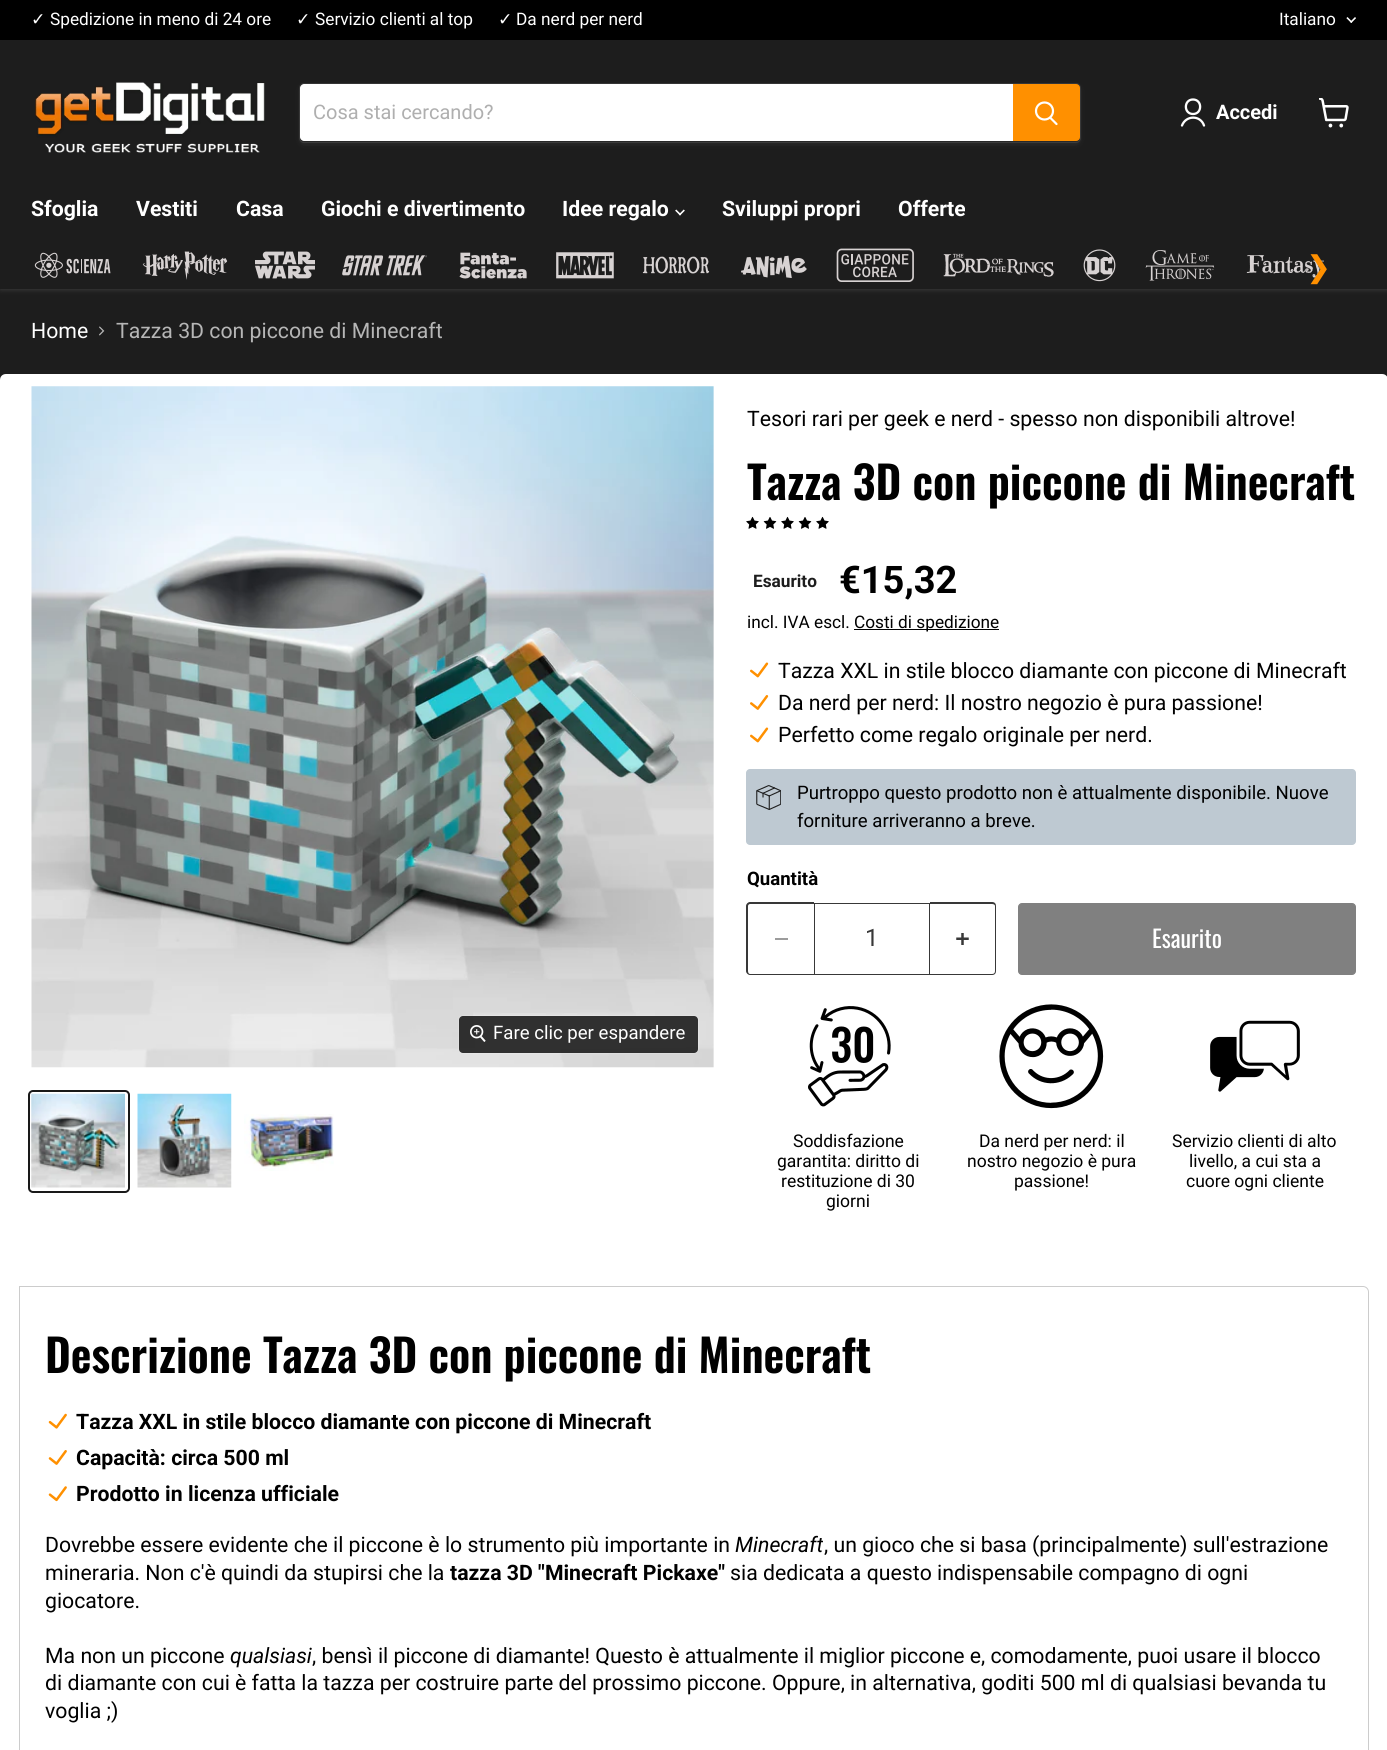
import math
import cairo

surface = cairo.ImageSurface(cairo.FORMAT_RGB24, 1387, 1750)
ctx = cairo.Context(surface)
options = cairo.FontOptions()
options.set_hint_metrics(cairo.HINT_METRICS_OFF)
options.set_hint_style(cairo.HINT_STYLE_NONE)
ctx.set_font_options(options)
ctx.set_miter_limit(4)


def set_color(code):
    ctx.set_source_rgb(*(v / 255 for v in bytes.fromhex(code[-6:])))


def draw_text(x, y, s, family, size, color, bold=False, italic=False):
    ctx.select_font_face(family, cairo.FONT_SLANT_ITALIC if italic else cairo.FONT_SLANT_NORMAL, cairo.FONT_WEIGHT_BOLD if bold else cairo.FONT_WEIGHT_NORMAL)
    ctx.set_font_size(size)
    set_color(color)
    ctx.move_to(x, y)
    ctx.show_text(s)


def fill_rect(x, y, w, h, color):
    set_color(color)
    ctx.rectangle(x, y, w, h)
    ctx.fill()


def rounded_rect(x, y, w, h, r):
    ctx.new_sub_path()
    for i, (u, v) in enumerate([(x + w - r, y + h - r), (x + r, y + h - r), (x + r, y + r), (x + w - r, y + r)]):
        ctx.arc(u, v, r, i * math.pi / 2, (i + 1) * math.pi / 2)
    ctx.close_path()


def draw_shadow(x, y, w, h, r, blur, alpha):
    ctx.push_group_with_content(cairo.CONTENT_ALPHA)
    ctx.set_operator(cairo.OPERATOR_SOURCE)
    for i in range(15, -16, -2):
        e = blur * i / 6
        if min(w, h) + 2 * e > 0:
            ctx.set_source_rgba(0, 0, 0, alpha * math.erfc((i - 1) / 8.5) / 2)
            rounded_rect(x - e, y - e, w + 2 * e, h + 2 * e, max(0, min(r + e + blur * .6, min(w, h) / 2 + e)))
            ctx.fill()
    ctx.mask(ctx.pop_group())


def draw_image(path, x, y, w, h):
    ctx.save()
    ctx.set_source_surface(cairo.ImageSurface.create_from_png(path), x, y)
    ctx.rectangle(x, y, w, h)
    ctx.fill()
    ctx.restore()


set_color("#1d1d1d")
ctx.paint()
set_color("#8e8e8e")
draw_shadow(0, 43, 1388, 247, 0, 2.5, 0.25)
fill_rect(0, 0, 1387, 40, "#000000")
draw_text(31, 25, "✓", "DejaVu Sans", 17.25, "#ffffff")
draw_text(50, 25, "Spedizione in meno di 24 ore", "Roboto", 17.25, "#ffffff")
draw_text(296, 25, "✓", "DejaVu Sans", 17.25, "#ffffff")
draw_text(315, 25, "Servizio clienti al top", "Roboto", 17.25, "#ffffff")
draw_text(498, 25, "✓", "DejaVu Sans", 17.25, "#ffffff")
draw_text(516, 25, "Da nerd per nerd", "Roboto", 17.25, "#ffffff")
draw_text(1279, 25, "Italiano", "Roboto", 17.25, "#ffffff")
draw_image("assets/img1.png", 1346, 17, 10, 6)
fill_rect(0, 40, 1387, 249, "#1d1d1d")
draw_image("assets/img2.png", 35, 82, 230, 71)
set_color("#8e8e8e")
draw_shadow(299, 85, 782, 60, 5, 2, 0.11)
rounded_rect(299.5, 83.5, 781, 59, 4.5)
ctx.set_source_rgba(0.557, 0.557, 0.557, 0.2)
ctx.set_line_width(1)
ctx.stroke()
set_color("#ffffff")
ctx.new_path()
ctx.move_to(304, 84)
ctx.line_to(1013, 84)
ctx.line_to(1013, 141)
ctx.line_to(304, 141)
ctx.curve_to(302, 141, 300, 139, 300, 137)
ctx.line_to(300, 88)
ctx.curve_to(300, 86, 302, 84, 304, 84)
ctx.close_path()
ctx.fill()
draw_text(313, 119, "Cosa stai cercando?", "Roboto", 20, "#afafaf")
set_color("#ff9000")
ctx.new_path()
ctx.move_to(1013.5, 84.5)
ctx.line_to(1076, 84.5)
ctx.curve_to(1078, 84.5, 1079.5, 86, 1079.5, 88)
ctx.line_to(1079.5, 137)
ctx.curve_to(1079.5, 139, 1078, 140.5, 1076, 140.5)
ctx.line_to(1013.5, 140.5)
ctx.close_path()
ctx.fill_preserve()
ctx.stroke()
ctx.new_path()
ctx.move_to(1056.5, 124)
ctx.line_to(1050.5, 118)
set_color("#ffffff")
ctx.set_line_width(2.2)
ctx.set_line_cap(cairo.LINE_CAP_ROUND)
ctx.stroke()
ctx.arc(1044.5, 111, 8.5, 0, 2 * math.pi)
ctx.set_line_cap(cairo.LINE_CAP_BUTT)
ctx.stroke()
ctx.new_path()
ctx.move_to(1193, 114)
ctx.curve_to(1202.5, 114, 1202.5, 99.5, 1193, 99.5)
ctx.curve_to(1183.5, 99.5, 1183.5, 114, 1193, 114)
ctx.close_path()
ctx.move_to(1204, 125.5)
ctx.curve_to(1200.5, 115, 1186, 115, 1182, 125.5)
ctx.set_line_width(2.3)
ctx.set_line_cap(cairo.LINE_CAP_ROUND)
ctx.set_line_join(cairo.LINE_JOIN_ROUND)
ctx.stroke()
draw_text(1216, 119, "Accedi", "Roboto", 20, "#ffffff", bold=True)
draw_image("assets/img3.png", 1319, 98, 30, 30)
draw_text(31, 216, "Sfoglia", "Roboto", 21.25, "#ffffff", bold=True)
draw_text(136, 216, "Vestiti", "Roboto", 21.25, "#ffffff", bold=True)
draw_text(236, 216, "Casa", "Roboto", 21.25, "#ffffff", bold=True)
draw_text(321, 216, "Giochi e divertimento", "Roboto", 21.25, "#ffffff", bold=True)
draw_text(562, 216, "Idee regalo", "Roboto", 21.25, "#ffffff", bold=True)
draw_image("assets/img4.png", 675, 209, 10, 7)
draw_text(722, 216, "Sviluppi propri", "Roboto", 21.25, "#ffffff", bold=True)
draw_text(898, 216, "Offerte", "Roboto", 21.25, "#ffffff", bold=True)
draw_image("assets/img5.png", 34, 252, 77, 26)
draw_image("assets/img6.png", 142, 251, 86, 29)
draw_image("assets/img7.png", 255, 251, 60, 28)
draw_image("assets/img8.png", 342, 255, 85, 21)
draw_image("assets/img9.png", 459, 252, 68, 27)
draw_image("assets/img10.png", 556, 252, 58, 27)
draw_image("assets/img11.png", 642, 256, 68, 18)
draw_image("assets/img12.png", 741, 255, 66, 23)
draw_image("assets/img13.png", 836, 248, 78, 34)
draw_image("assets/img14.png", 943, 253, 111, 24)
draw_image("assets/img15.png", 1083, 249, 33, 33)
draw_image("assets/img16.png", 1145, 250, 70, 31)
draw_image("assets/img17.png", 1246, 255, 78, 23)
draw_text(1306, 277, "❯", "DejaVu Sans", 30, "#ff9000")
draw_text(31, 338, "Home", "Roboto", 21.25, "#ffffff")
draw_image("assets/img18.png", 99, 326, 6, 10)
draw_text(116, 338, "Tazza 3D con piccone di Minecraft", "Roboto", 21.25, "#b6b6b6")
set_color("#ffffff")
ctx.new_path()
ctx.move_to(6, 374)
ctx.line_to(1382, 374)
ctx.curve_to(1385.5, 374, 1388, 376.5, 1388, 380)
ctx.line_to(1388, 1218)
ctx.line_to(0, 1218)
ctx.line_to(0, 380)
ctx.curve_to(0, 376.5, 2.5, 374, 6, 374)
ctx.close_path()
ctx.fill()
draw_image("assets/img19.png", 31, 386, 683, 682)
rounded_rect(458.5, 1015.5, 240, 38, 4.5)
ctx.set_source_rgba(1, 1, 1, 0.15)
ctx.set_line_width(1)
ctx.set_line_cap(cairo.LINE_CAP_BUTT)
ctx.set_line_join(cairo.LINE_JOIN_MITER)
ctx.stroke()
ctx.set_source_rgba(0.114, 0.114, 0.114, 0.9)
rounded_rect(459, 1016, 239, 37, 4)
ctx.fill()
draw_image("assets/img20.png", 470, 1025, 16, 17)
draw_text(493, 1039, "Fare clic per espandere", "Roboto", 18.6, "#ffffff")
rounded_rect(29, 1091, 100, 101, 4)
set_color("#191919")
ctx.set_line_width(2)
ctx.stroke()
draw_image("assets/img21.png", 31, 1093, 94, 95)
draw_image("assets/img22.png", 137, 1093, 95, 95)
draw_image("assets/img23.png", 244, 1114, 90, 57)
draw_text(747, 426, "Tesori rari per geek e nerd - spesso non disponibili altrove!", "Roboto", 21.25, "#000000")
draw_text(747, 500, "Tazza 3D con piccone di Minecraft", "Oswald SemiBold", 45, "#000000")
draw_image("assets/img24.png", 746, 516, 13, 13)
draw_image("assets/img25.png", 763, 517, 14, 12)
draw_image("assets/img24.png", 781, 516, 13, 13)
draw_image("assets/img25.png", 798, 517, 14, 12)
draw_image("assets/img24.png", 816, 516, 13, 13)
draw_text(839, 593, "€15,32", "Roboto", 38, "#000000", bold=True)
draw_text(747, 628, "incl. IVA escl.", "Roboto", 17.25, "#000000")
fill_rect(854, 629, 145, 1, "#000000")
draw_text(854, 628, "Costi di spedizione", "Roboto", 17.25, "#000000")
draw_text(753, 587, "Esaurito", "Roboto", 17.25, "#1d1d1d", bold=True)
draw_image("assets/img26.png", 750, 662, 19, 16)
draw_text(778, 678, "Tazza XXL in stile blocco diamante con piccone di Minecraft", "Roboto", 21.25, "#000000")
draw_image("assets/img27.png", 750, 695, 19, 15)
draw_text(778, 710, "Da nerd per nerd: Il nostro negozio è pura passione!", "Roboto", 21.25, "#000000")
draw_image("assets/img26.png", 750, 727, 19, 16)
draw_text(778, 742, "Perfetto come regalo originale per nerd.", "Roboto", 21.25, "#000000")
set_color("#bec9d2")
rounded_rect(746, 769, 610, 76, 4)
ctx.fill()
draw_image("assets/img28.png", 756, 785, 25, 25)
draw_text(797, 799, "Purtroppo questo prodotto non è attualmente disponibile. Nuove", "Roboto", 18.6, "#000000")
draw_text(797, 827, "forniture arriveranno a breve.", "Roboto", 18.6, "#000000")
draw_text(747, 885, "Quantità", "Roboto", 18.6, "#000000", bold=True)
set_color("#383838")
ctx.set_fill_rule(cairo.FILL_RULE_EVEN_ODD)
ctx.new_path()
ctx.move_to(750, 902)
ctx.line_to(814, 902)
ctx.line_to(814, 975)
ctx.line_to(750, 975)
ctx.curve_to(748, 975, 746, 973, 746, 971)
ctx.line_to(746, 906)
ctx.curve_to(746, 904, 748, 902, 750, 902)
ctx.close_path()
ctx.move_to(750, 904)
ctx.line_to(814, 904)
ctx.line_to(814, 974)
ctx.line_to(750, 974)
ctx.curve_to(749, 974, 748, 973, 748, 971)
ctx.line_to(748, 906)
ctx.curve_to(748, 905, 749, 904, 750, 904)
ctx.close_path()
ctx.fill()
fill_rect(775, 938, 13, 2, "#9c9c9c")
ctx.rectangle(814.5, 903.5, 115, 71)
set_color("#383838")
ctx.set_line_width(1)
ctx.stroke()
draw_text(865, 946, "1", "Roboto", 24, "#383838")
ctx.new_path()
ctx.move_to(930, 902)
ctx.line_to(992, 902)
ctx.curve_to(995, 902, 996, 904, 996, 906)
ctx.line_to(996, 971)
ctx.curve_to(996, 973, 995, 975, 992, 975)
ctx.line_to(930, 975)
ctx.close_path()
ctx.move_to(930, 904)
ctx.line_to(992, 904)
ctx.curve_to(994, 904, 995, 905, 995, 906)
ctx.line_to(995, 971)
ctx.curve_to(995, 973, 994, 974, 992, 974)
ctx.line_to(930, 974)
ctx.close_path()
ctx.fill()
draw_image("assets/img29.png", 956, 933, 13, 12)
set_color("#808080")
rounded_rect(1018.5, 903.5, 337, 71, 3.5)
ctx.fill_preserve()
ctx.stroke()
draw_text(1152, 948, "Esaurito", "Oswald", 24, "#ffffff")
draw_image("assets/img30.png", 808, 1006, 83, 101)
draw_text(793, 1147, "Soddisfazione", "Roboto", 17.5, "#000000")
draw_text(777, 1167, "garantita: diritto di", "Roboto", 17.5, "#000000")
draw_text(781, 1187, "restituzione di 30", "Roboto", 17.5, "#000000")
draw_text(826, 1207, "giorni", "Roboto", 17.5, "#000000")
draw_image("assets/img31.png", 999, 1004, 105, 105)
draw_text(979, 1147, "Da nerd per nerd: il", "Roboto", 17.5, "#000000")
draw_text(967, 1167, "nostro negozio è pura", "Roboto", 17.5, "#000000")
draw_text(1014, 1187, "passione!", "Roboto", 17.5, "#000000")
draw_image("assets/img32.png", 1210, 1020, 90, 72)
draw_text(1172, 1147, "Servizio clienti di alto", "Roboto", 17.5, "#000000")
draw_text(1189, 1167, "livello, a cui sta a", "Roboto", 17.5, "#000000")
draw_text(1186, 1187, "cuore ogni cliente", "Roboto", 17.5, "#000000")
fill_rect(0, 1218, 1387, 532, "#ffffff")
ctx.new_path()
ctx.move_to(19.5, 1286.5)
ctx.line_to(1363, 1286.5)
ctx.curve_to(1366, 1286.5, 1368.5, 1289, 1368.5, 1292)
ctx.line_to(1368.5, 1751)
ctx.curve_to(1368.5, 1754, 1366, 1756.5, 1363, 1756.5)
ctx.line_to(25, 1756.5)
ctx.curve_to(22, 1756.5, 19.5, 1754, 19.5, 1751)
ctx.close_path()
set_color("#cccccc")
ctx.stroke()
draw_text(45, 1373, "Descrizione Tazza 3D con piccone di Minecraft", "Oswald SemiBold", 45, "#000000")
draw_image("assets/img33.png", 48, 1413, 19, 16)
draw_text(76, 1429, "Tazza XXL in stile blocco diamante con piccone di Minecraft", "Roboto", 21.25, "#000000", bold=True)
draw_image("assets/img34.png", 48, 1450, 19, 15)
draw_text(76, 1465, "Capacità: circa 500 ml", "Roboto", 21.25, "#000000", bold=True)
draw_image("assets/img35.png", 48, 1486, 19, 16)
draw_text(76, 1501, "Prodotto in licenza ufficiale", "Roboto", 21.25, "#000000", bold=True)
draw_text(45, 1552, "Dovrebbe essere evidente che il piccone è lo strumento più importante in", "Roboto", 21.25, "#000000")
draw_text(735, 1552, "Minecraft", "Roboto", 21.25, "#000000", italic=True)
draw_text(824, 1552, ", un gioco che si basa (principalmente) sull'estrazione", "Roboto", 21.25, "#000000")
draw_text(45, 1580, "mineraria. Non c'è quindi da stupirsi che la", "Roboto", 21.25, "#000000")
draw_text(450, 1580, "tazza 3D \"Minecraft Pickaxe\"", "Roboto", 21.25, "#000000", bold=True)
draw_text(730, 1580, "sia dedicata a questo indispensabile compagno di ogni", "Roboto", 21.25, "#000000")
draw_text(45, 1608, "giocatore.", "Roboto", 21.25, "#000000")
draw_text(45, 1663, "Ma non un piccone", "Roboto", 21.25, "#000000")
draw_text(230, 1663, "qualsiasi", "Roboto", 21.25, "#000000", italic=True)
draw_text(312, 1663, ", bensì il piccone di diamante! Questo è attualmente il miglior piccone e, comodamente, puoi usare il blocco", "Roboto", 21.25, "#000000")
draw_text(45, 1690, "di diamante con cui è fatta la tazza per costruire parte del prossimo piccone. Oppure, in alternativa, goditi 500 ml di qualsiasi bevanda tu", "Roboto", 21.25, "#000000")
draw_text(45, 1718, "voglia ;)", "Roboto", 21.25, "#000000")
surface.write_to_png("output.png")
